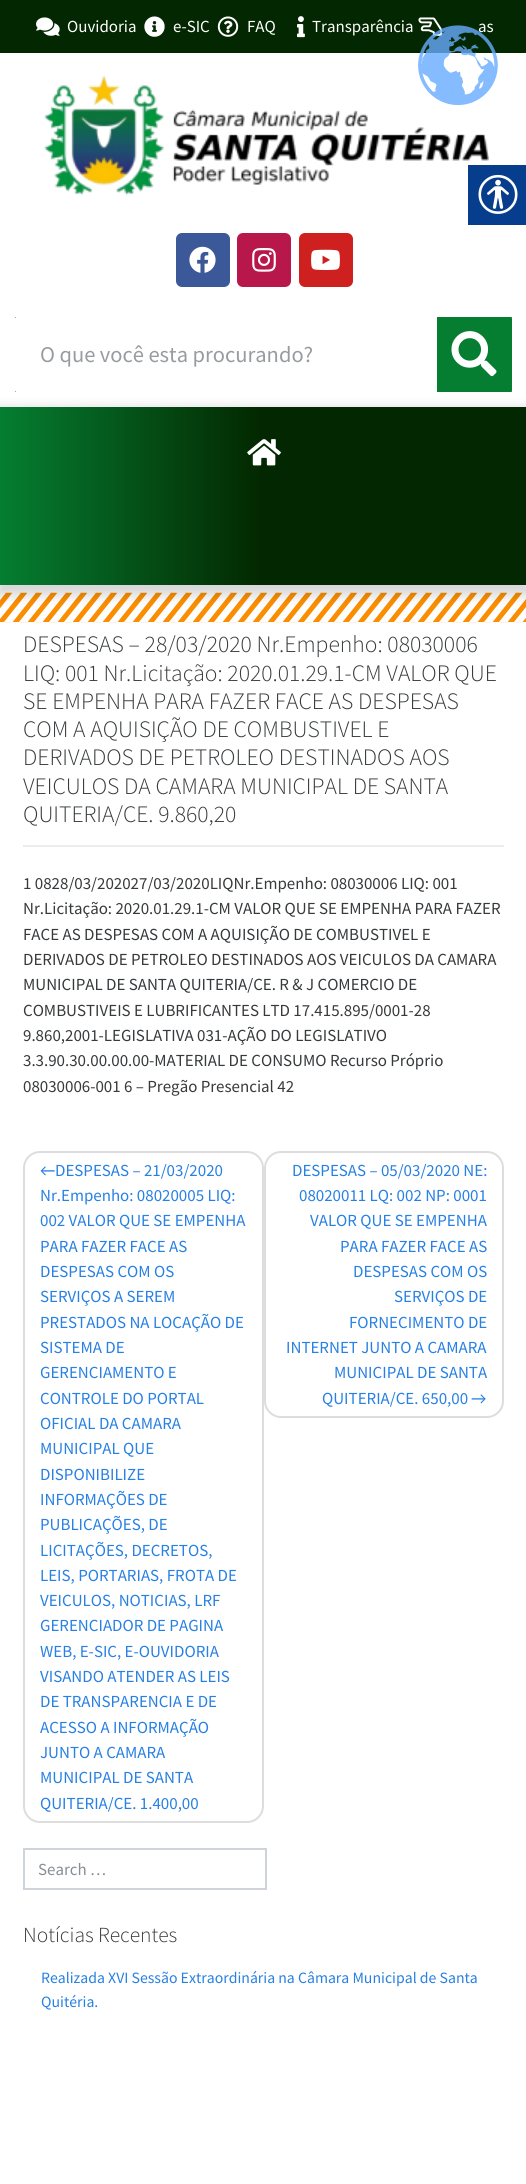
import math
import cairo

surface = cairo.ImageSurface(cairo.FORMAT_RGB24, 526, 2184)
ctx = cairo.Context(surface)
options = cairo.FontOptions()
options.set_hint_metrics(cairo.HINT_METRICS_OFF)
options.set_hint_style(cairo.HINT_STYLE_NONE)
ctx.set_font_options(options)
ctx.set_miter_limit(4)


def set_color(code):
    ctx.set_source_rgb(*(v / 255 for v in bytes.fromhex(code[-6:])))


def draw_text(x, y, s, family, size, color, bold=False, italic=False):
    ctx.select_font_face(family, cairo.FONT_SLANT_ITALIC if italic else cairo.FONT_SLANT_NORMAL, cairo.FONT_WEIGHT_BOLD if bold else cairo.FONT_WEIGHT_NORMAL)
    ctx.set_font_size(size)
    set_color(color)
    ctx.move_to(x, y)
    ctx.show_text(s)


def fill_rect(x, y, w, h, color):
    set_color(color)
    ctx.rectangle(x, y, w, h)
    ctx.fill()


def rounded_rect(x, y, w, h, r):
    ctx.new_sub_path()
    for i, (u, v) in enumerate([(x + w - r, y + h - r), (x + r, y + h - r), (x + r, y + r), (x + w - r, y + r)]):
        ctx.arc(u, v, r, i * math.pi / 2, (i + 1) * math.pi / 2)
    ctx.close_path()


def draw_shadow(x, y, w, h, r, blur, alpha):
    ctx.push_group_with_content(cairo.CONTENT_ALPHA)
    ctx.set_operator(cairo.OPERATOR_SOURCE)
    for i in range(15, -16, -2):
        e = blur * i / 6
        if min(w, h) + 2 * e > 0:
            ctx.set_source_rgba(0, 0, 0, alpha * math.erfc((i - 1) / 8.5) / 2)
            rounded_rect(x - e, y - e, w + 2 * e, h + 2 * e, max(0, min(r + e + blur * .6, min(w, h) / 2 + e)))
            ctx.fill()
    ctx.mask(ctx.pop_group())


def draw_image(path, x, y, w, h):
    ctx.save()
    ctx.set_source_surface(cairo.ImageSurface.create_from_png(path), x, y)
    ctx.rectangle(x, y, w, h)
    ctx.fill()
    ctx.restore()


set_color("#ffffff")
ctx.paint()
fill_rect(0, 0, 526, 53, "#032700")
draw_image("assets/img1.png", 36, 17, 24, 19)
draw_text(67, 32, "Ouvidoria", "Source Sans Pro", 16.9, "#ffffff")
draw_image("assets/img2.png", 144, 16, 21, 21)
draw_text(173, 32, "e-SIC", "Source Sans Pro", 16.9, "#ffffff")
draw_image("assets/img3.png", 217, 16, 22, 21)
draw_text(247, 32, "FAQ", "Source Sans Pro", 16.9, "#ffffff")
draw_image("assets/img4.png", 297, 16, 8, 22)
draw_text(312, 32, "Transparência", "Source Sans Pro", 16.9, "#ffffff")
draw_image("assets/img5.png", 418, 17, 25, 19)
draw_text(478, 32, "as", "Source Sans Pro", 16.9, "#ffffff")
draw_image("assets/img6.png", 44, 75, 445, 121)
set_color("#3b5998")
rounded_rect(176, 233, 54, 54, 6)
ctx.fill()
draw_image("assets/img7.png", 189, 246, 27, 27)
set_color("#b8174b")
rounded_rect(237, 233, 54, 54, 6)
ctx.fill()
draw_image("assets/img8.png", 252, 248, 24, 24)
set_color("#cd201f")
rounded_rect(299, 233, 54, 54, 6)
ctx.fill()
draw_image("assets/img9.png", 311, 249, 29, 21)
fill_rect(15, 317, 497, 75, "#2b5498")
set_color("#ffffff")
rounded_rect(15, 317, 497, 75, 1.5)
ctx.fill()
draw_text(40, 362, "O que você esta procurando?", "Source Sans Pro", 22.5, "#989b9f")
set_color("#057e31")
ctx.new_path()
ctx.move_to(437, 317)
ctx.line_to(510.5, 317)
ctx.curve_to(511.5, 317, 512, 317.5, 512, 318.5)
ctx.line_to(512, 390.5)
ctx.curve_to(512, 391.5, 511.5, 392, 510.5, 392)
ctx.line_to(437, 392)
ctx.close_path()
ctx.fill()
draw_image("assets/img10.png", 451, 331, 46, 46)
draw_image("assets/img12.png", 0, 592, 526, 31)
set_color("#000000")
draw_shadow(-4, 408, 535, 188, 0, 6, 0.16)
gradient = cairo.LinearGradient(0, 496, 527, 496)
gradient.add_color_stop_rgba(0, 0.02, 0.494, 0.192, 1)
gradient.add_color_stop_rgba(0.5, 0.012, 0.153, 0, 1)
ctx.set_source(gradient)
ctx.rectangle(0, 407, 526, 178)
ctx.fill()
draw_image("assets/img11.png", 247, 439, 34, 27)
draw_image("assets/img13.png", 418, 25, 80, 81)
fill_rect(468, 165, 58, 60, "#063d8d")
draw_image("assets/img14.png", 478, 174, 40, 40)
fill_rect(23, 845, 481, 2, "#eaecef")
draw_text(23, 652, "DESPESAS – 28/03/2020 Nr.Empenho: 08030006", "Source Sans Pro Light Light", 23.6, "#373a3c")
draw_text(23, 681, "LIQ: 001 Nr.Licitação: 2020.01.29.1-CM VALOR QUE", "Source Sans Pro Light Light", 23.6, "#373a3c")
draw_text(23, 709, "SE EMPENHA PARA FAZER FACE AS DESPESAS", "Source Sans Pro Light Light", 23.6, "#373a3c")
draw_text(23, 737, "COM A AQUISIÇÃO DE COMBUSTIVEL E", "Source Sans Pro Light Light", 23.6, "#373a3c")
draw_text(23, 765, "DERIVADOS DE PETROLEO DESTINADOS AOS", "Source Sans Pro Light Light", 23.6, "#373a3c")
draw_text(23, 794, "VEICULOS DA CAMARA MUNICIPAL DE SANTA", "Source Sans Pro Light Light", 23.6, "#373a3c")
draw_text(23, 822, "QUITERIA/CE. 9.860,20", "Source Sans Pro Light Light", 23.6, "#373a3c")
draw_text(23, 889, "1 0828/03/202027/03/2020LIQNr.Empenho: 08030006 LIQ: 001", "Source Sans Pro", 16.9, "#373a3c")
draw_text(23, 914, "Nr.Licitação: 2020.01.29.1-CM VALOR QUE SE EMPENHA PARA FAZER", "Source Sans Pro", 16.9, "#373a3c")
draw_text(23, 940, "FACE AS DESPESAS COM A AQUISIÇÃO DE COMBUSTIVEL E", "Source Sans Pro", 16.9, "#373a3c")
draw_text(23, 965, "DERIVADOS DE PETROLEO DESTINADOS AOS VEICULOS DA CAMARA", "Source Sans Pro", 16.9, "#373a3c")
draw_text(23, 990, "MUNICIPAL DE SANTA QUITERIA/CE. R & J COMERCIO DE", "Source Sans Pro", 16.9, "#373a3c")
draw_text(23, 1016, "COMBUSTIVEIS E LUBRIFICANTES LTD 17.415.895/0001-28", "Source Sans Pro", 16.9, "#373a3c")
draw_text(23, 1041, "9.860,2001-LEGISLATIVA 031-AÇÃO DO LEGISLATIVO", "Source Sans Pro", 16.9, "#373a3c")
draw_text(23, 1066, "3.3.90.30.00.00.00-MATERIAL DE CONSUMO Recurso Próprio", "Source Sans Pro", 16.9, "#373a3c")
draw_text(23, 1092, "08030006-001 6 – Pregão Presencial 42", "Source Sans Pro", 16.9, "#373a3c")
rounded_rect(24, 1152, 239, 670, 16)
set_color("#dddddd")
ctx.stroke()
draw_text(40, 1176, "←", "Carlito", 16.9, "#2780e3")
draw_text(55, 1176, "DESPESAS – 21/03/2020", "Source Sans Pro", 16.9, "#2780e3")
draw_text(40, 1201, "Nr.Empenho: 08020005 LIQ:", "Source Sans Pro", 16.9, "#2780e3")
draw_text(40, 1226, "002 VALOR QUE SE EMPENHA", "Source Sans Pro", 16.9, "#2780e3")
draw_text(40, 1252, "PARA FAZER FACE AS", "Source Sans Pro", 16.9, "#2780e3")
draw_text(40, 1277, "DESPESAS COM OS", "Source Sans Pro", 16.9, "#2780e3")
draw_text(40, 1302, "SERVIÇOS A SEREM", "Source Sans Pro", 16.9, "#2780e3")
draw_text(40, 1328, "PRESTADOS NA LOCAÇÃO DE", "Source Sans Pro", 16.9, "#2780e3")
draw_text(40, 1353, "SISTEMA DE", "Source Sans Pro", 16.9, "#2780e3")
draw_text(40, 1378, "GERENCIAMENTO E", "Source Sans Pro", 16.9, "#2780e3")
draw_text(40, 1404, "CONTROLE DO PORTAL", "Source Sans Pro", 16.9, "#2780e3")
draw_text(40, 1429, "OFICIAL DA CAMARA", "Source Sans Pro", 16.9, "#2780e3")
draw_text(40, 1454, "MUNICIPAL QUE", "Source Sans Pro", 16.9, "#2780e3")
draw_text(40, 1480, "DISPONIBILIZE", "Source Sans Pro", 16.9, "#2780e3")
draw_text(40, 1505, "INFORMAÇÕES DE", "Source Sans Pro", 16.9, "#2780e3")
draw_text(40, 1530, "PUBLICAÇÕES, DE", "Source Sans Pro", 16.9, "#2780e3")
draw_text(40, 1556, "LICITAÇÕES, DECRETOS,", "Source Sans Pro", 16.9, "#2780e3")
draw_text(40, 1581, "LEIS, PORTARIAS, FROTA DE", "Source Sans Pro", 16.9, "#2780e3")
draw_text(40, 1606, "VEICULOS, NOTICIAS, LRF", "Source Sans Pro", 16.9, "#2780e3")
draw_text(40, 1631, "GERENCIADOR DE PAGINA", "Source Sans Pro", 16.9, "#2780e3")
draw_text(40, 1657, "WEB, E-SIC, E-OUVIDORIA", "Source Sans Pro", 16.9, "#2780e3")
draw_text(40, 1682, "VISANDO ATENDER AS LEIS", "Source Sans Pro", 16.9, "#2780e3")
draw_text(40, 1707, "DE TRANSPARENCIA E DE", "Source Sans Pro", 16.9, "#2780e3")
draw_text(40, 1733, "ACESSO A INFORMAÇÃO", "Source Sans Pro", 16.9, "#2780e3")
draw_text(40, 1758, "JUNTO A CAMARA", "Source Sans Pro", 16.9, "#2780e3")
draw_text(40, 1783, "MUNICIPAL DE SANTA", "Source Sans Pro", 16.9, "#2780e3")
draw_text(40, 1809, "QUITERIA/CE. 1.400,00", "Source Sans Pro", 16.9, "#2780e3")
rounded_rect(265, 1152, 238, 265, 16)
set_color("#dddddd")
ctx.stroke()
draw_text(292, 1176, "DESPESAS – 05/03/2020 NE:", "Source Sans Pro", 16.9, "#2780e3")
draw_text(299, 1201, "08020011 LQ: 002 NP: 0001", "Source Sans Pro", 16.9, "#2780e3")
draw_text(310, 1226, "VALOR QUE SE EMPENHA", "Source Sans Pro", 16.9, "#2780e3")
draw_text(340, 1252, "PARA FAZER FACE AS", "Source Sans Pro", 16.9, "#2780e3")
draw_text(353, 1277, "DESPESAS COM OS", "Source Sans Pro", 16.9, "#2780e3")
draw_text(394, 1302, "SERVIÇOS DE", "Source Sans Pro", 16.9, "#2780e3")
draw_text(349, 1328, "FORNECIMENTO DE", "Source Sans Pro", 16.9, "#2780e3")
draw_text(286, 1353, "INTERNET JUNTO A CAMARA", "Source Sans Pro", 16.9, "#2780e3")
draw_text(334, 1378, "MUNICIPAL DE SANTA", "Source Sans Pro", 16.9, "#2780e3")
draw_text(322, 1404, "QUITERIA/CE. 650,00", "Source Sans Pro", 16.9, "#2780e3")
draw_text(471, 1404, "→", "Carlito", 16.9, "#2780e3")
ctx.rectangle(24, 1849, 242, 40)
set_color("#ced4da")
ctx.stroke()
draw_text(38, 1875, "Search …", "Source Sans Pro", 16.9, "#868e96")
draw_text(23, 1942, "Notícias Recentes", "Source Sans Pro Light Light", 21.5, "#373a3c")
draw_text(41, 1983, "Realizada XVI Sessão Extraordinária na Câmara Municipal de Santa", "Source Sans Pro", 15.75, "#2780e3")
draw_text(41, 2007, "Quitéria.", "Source Sans Pro", 15.75, "#2780e3")
surface.write_to_png("output.png")
